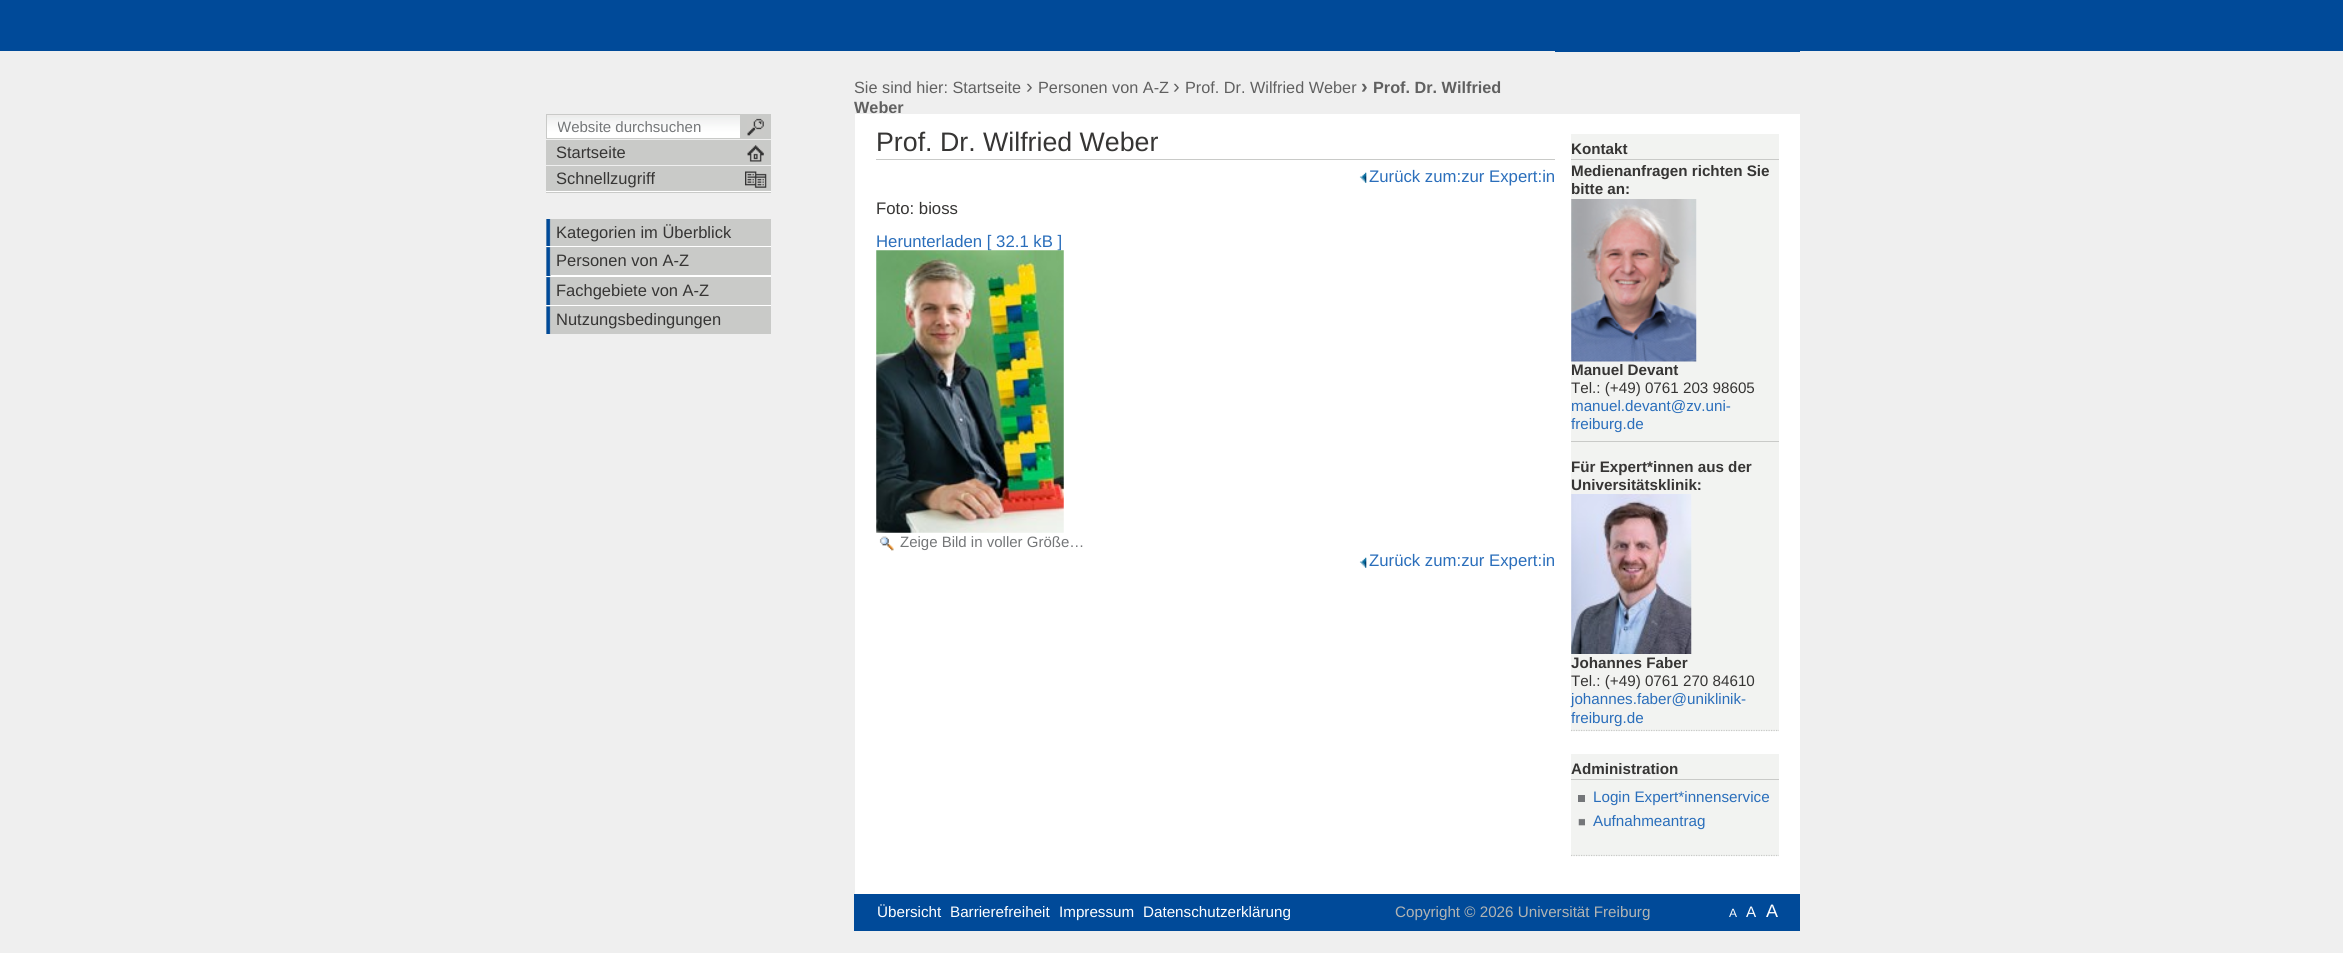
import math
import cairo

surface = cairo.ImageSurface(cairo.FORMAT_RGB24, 2343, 953)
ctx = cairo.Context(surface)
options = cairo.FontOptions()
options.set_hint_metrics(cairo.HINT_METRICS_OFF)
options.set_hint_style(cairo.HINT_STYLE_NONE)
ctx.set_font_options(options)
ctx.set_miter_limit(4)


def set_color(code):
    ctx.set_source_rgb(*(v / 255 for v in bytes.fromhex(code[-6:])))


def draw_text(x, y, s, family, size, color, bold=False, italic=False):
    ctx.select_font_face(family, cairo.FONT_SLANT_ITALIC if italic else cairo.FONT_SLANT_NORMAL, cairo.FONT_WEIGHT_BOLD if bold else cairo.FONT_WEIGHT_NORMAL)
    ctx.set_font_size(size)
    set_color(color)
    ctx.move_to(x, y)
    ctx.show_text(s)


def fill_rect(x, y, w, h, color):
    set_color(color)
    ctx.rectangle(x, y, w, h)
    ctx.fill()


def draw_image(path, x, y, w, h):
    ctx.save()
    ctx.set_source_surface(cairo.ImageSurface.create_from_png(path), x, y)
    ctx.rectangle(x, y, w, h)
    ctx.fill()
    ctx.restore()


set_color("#efefef")
ctx.paint()
fill_rect(0, 0, 2343, 51, "#004a99")
fill_rect(1555, 51, 245, 1, "#004a99")
draw_text(854, 93, "Sie sind hier: Startseite", "Liberation Sans", 16.25, "#606060")
draw_text(1026, 93, "›", "Liberation Sans", 20, "#606060")
draw_text(1038, 93, "Personen von A-Z", "Liberation Sans", 16.25, "#606060")
draw_text(1173, 93, "›", "Liberation Sans", 20, "#606060")
draw_text(1185, 93, "Prof. Dr. Wilfried Weber", "Liberation Sans", 16.25, "#606060")
draw_text(1361, 93, "›", "Liberation Sans", 20, "#606060", bold=True)
draw_text(1373, 93, "Prof. Dr. Wilfried", "Liberation Sans", 16.25, "#606060", bold=True)
draw_text(854, 113, "Weber", "Liberation Sans", 16.25, "#606060", bold=True)
draw_image("assets/img1.png", 547, 115, 193, 23)
ctx.rectangle(546.5, 114.5, 194, 24)
set_color("#c9cac8")
ctx.set_line_width(1)
ctx.stroke()
ctx.save()
ctx.rectangle(558, 119, 182, 17)
ctx.clip()
draw_text(557, 132, "Website durchsuchen", "Liberation Sans", 15, "#747678")
ctx.restore()
fill_rect(741, 114, 30, 25, "#c9cac8")
draw_image("assets/img2.png", 747, 118, 17, 18)
fill_rect(546, 140, 225, 25, "#c9cac8")
draw_image("assets/img3.png", 747, 145, 17, 17)
draw_text(556, 158, "Startseite", "Liberation Sans", 16.5, "#363534")
fill_rect(546, 166, 225, 27, "#c9cac8")
draw_image("assets/img4.png", 745, 171, 22, 17)
fill_rect(546, 191, 225, 1, "#ffffff")
draw_text(556, 184, "Schnellzugriff", "Liberation Sans", 16.5, "#363534")
fill_rect(546, 219, 225, 86, "#c9cac8")
draw_image("assets/img5.png", 546, 219, 5, 29)
fill_rect(546, 246, 225, 1, "#ffffff")
draw_text(556, 238, "Kategorien im Überblick", "Liberation Sans", 16.5, "#363534")
draw_image("assets/img6.png", 546, 247, 5, 31)
fill_rect(546, 276, 225, 1, "#ffffff")
draw_text(556, 266, "Personen von A-Z", "Liberation Sans", 16.5, "#363534")
fill_rect(551, 275, 220, 1, "#ffffff")
draw_image("assets/img7.png", 546, 277, 6, 28)
fill_rect(546, 305, 225, 1, "#ffffff")
draw_text(556, 296, "Fachgebiete von A-Z", "Liberation Sans", 16.5, "#363534")
fill_rect(546, 306, 225, 28, "#c9cac8")
draw_image("assets/img8.png", 546, 306, 5, 28)
draw_text(556, 325, "Nutzungsbedingungen", "Liberation Sans", 16.5, "#363534")
fill_rect(855, 114, 945, 780, "#ffffff")
fill_rect(876, 159, 679, 1, "#c9cac8")
draw_text(876, 151, "Prof. Dr. Wilfried Weber", "Liberation Sans", 26.75, "#363534")
draw_image("assets/img9.png", 1359, 172, 8, 11)
draw_text(1369, 182, "Zurück zum:zur Expert:in", "Liberation Sans", 16.75, "#2a6ebb")
draw_text(876, 214, "Foto: bioss", "Liberation Sans", 16.75, "#363534")
draw_text(876, 247, "Herunterladen [ 32.1 kB ]", "Liberation Sans", 16.75, "#2a6ebb")
draw_image("assets/img10.png", 876, 250, 188, 283)
draw_image("assets/img11.png", 879, 536, 15, 15)
draw_text(900, 547, "Zeige Bild in voller Größe…", "Liberation Sans", 15, "#747678")
draw_image("assets/img9.png", 1359, 557, 8, 11)
draw_text(1369, 566, "Zurück zum:zur Expert:in", "Liberation Sans", 16.75, "#2a6ebb")
fill_rect(1571, 134, 208, 597, "#f2f3f1")
fill_rect(1571, 159, 208, 1, "#c9cac8")
draw_text(1571, 154, "Kontakt", "Liberation Sans", 15.2, "#363534", bold=True)
ctx.new_path()
ctx.move_to(1571, 730.5)
ctx.line_to(1779, 730.5)
set_color("#c9cac8")
ctx.set_line_width(1.2)
ctx.set_dash([1.25, 1.25])
ctx.stroke()
draw_text(1571, 176, "Medienanfragen richten Sie", "Liberation Sans", 15.2, "#363534", bold=True)
draw_text(1571, 194, "bitte an:", "Liberation Sans", 15.2, "#363534", bold=True)
draw_image("assets/img12.png", 1571, 199, 126, 163)
draw_text(1571, 375, "Manuel Devant", "Liberation Sans", 15.2, "#363534", bold=True)
draw_text(1571, 393, "Tel.: (+49) 0761 203 98605", "Liberation Sans", 15.2, "#363534")
draw_text(1571, 411, "manuel.devant@zv.uni-", "Liberation Sans", 15.2, "#2a6ebb")
draw_text(1571, 429, "freiburg.de", "Liberation Sans", 15.2, "#2a6ebb")
fill_rect(1571, 441, 208, 1, "#c9cac8")
draw_text(1571, 472, "Für Expert*innen aus der", "Liberation Sans", 15.2, "#363534", bold=True)
draw_text(1571, 490, "Universitätsklinik:", "Liberation Sans", 15.2, "#363534", bold=True)
draw_image("assets/img13.png", 1571, 494, 121, 160)
draw_text(1571, 668, "Johannes Faber", "Liberation Sans", 15.2, "#363534", bold=True)
draw_text(1571, 686, "Tel.: (+49) 0761 270 84610", "Liberation Sans", 15.2, "#363534")
draw_text(1571, 704, "johannes.faber@uniklinik-", "Liberation Sans", 15.2, "#2a6ebb")
draw_text(1571, 723, "freiburg.de", "Liberation Sans", 15.2, "#2a6ebb")
fill_rect(1571, 754, 208, 102, "#f2f3f1")
fill_rect(1571, 779, 208, 1, "#c9cac8")
draw_text(1571, 774, "Administration", "Liberation Sans", 15.2, "#363534", bold=True)
ctx.new_path()
ctx.move_to(1571, 855.5)
ctx.line_to(1779, 855.5)
set_color("#c9cac8")
ctx.stroke()
fill_rect(1578, 795, 7, 7, "#747679")
draw_text(1593, 802, "Login Expert*innenservice", "Liberation Sans", 15.2, "#2a6ebb")
draw_image("assets/img14.png", 1578, 818, 7, 8)
draw_text(1593, 826, "Aufnahmeantrag", "Liberation Sans", 15.2, "#2a6ebb")
fill_rect(854, 894, 946, 37, "#004a99")
draw_text(877, 917, "Übersicht", "Liberation Sans", 15.2, "#ffffff")
draw_text(950, 917, "Barrierefreiheit", "Liberation Sans", 15.2, "#ffffff")
draw_text(1059, 917, "Impressum", "Liberation Sans", 15.2, "#ffffff")
draw_text(1143, 917, "Datenschutzerklärung", "Liberation Sans", 15.2, "#ffffff")
draw_text(1395, 917, "Copyright © 2026 Universität Freiburg", "Liberation Sans", 15.2, "#b2b4b3")
draw_text(1729, 917, "A", "Liberation Sans", 12, "#ffffff")
draw_text(1746, 917, "A", "Liberation Sans", 15.2, "#ffffff")
draw_text(1766, 917, "A", "Liberation Sans", 18, "#ffffff")
surface.write_to_png("output.png")
